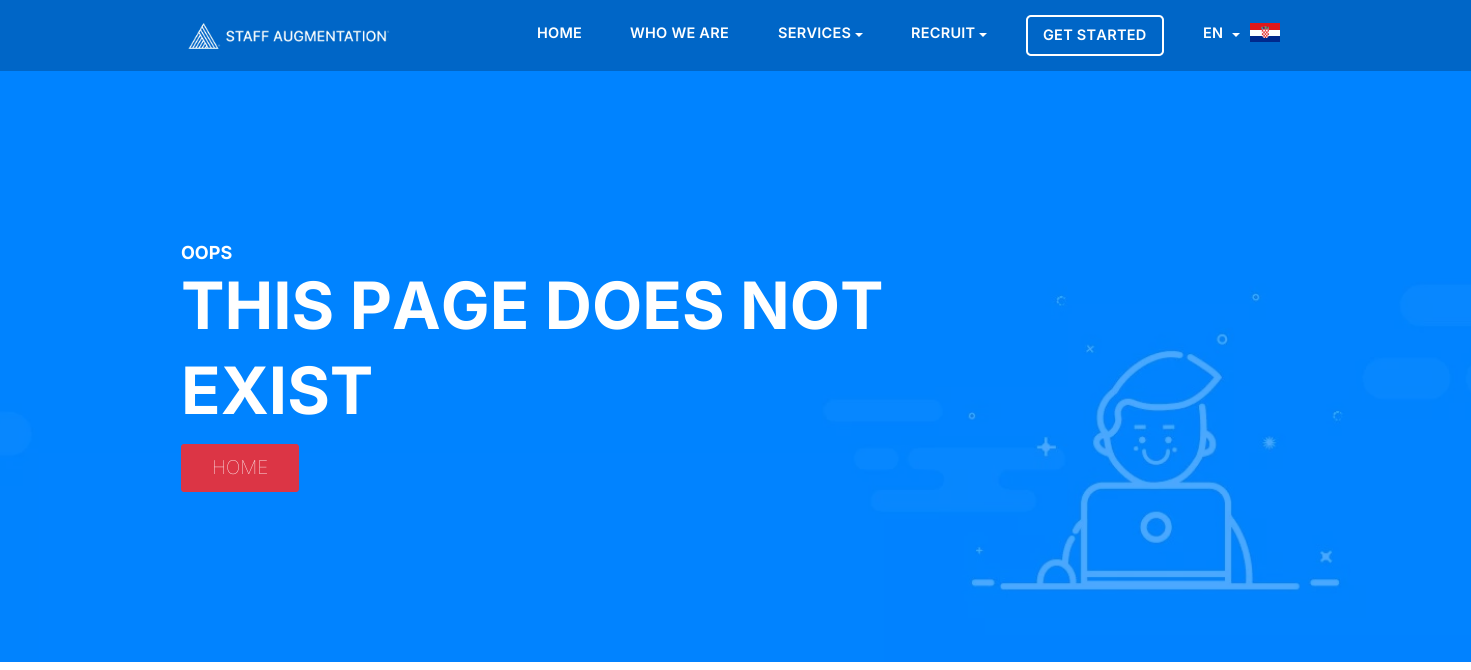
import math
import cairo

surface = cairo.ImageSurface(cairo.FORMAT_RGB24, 1471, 670)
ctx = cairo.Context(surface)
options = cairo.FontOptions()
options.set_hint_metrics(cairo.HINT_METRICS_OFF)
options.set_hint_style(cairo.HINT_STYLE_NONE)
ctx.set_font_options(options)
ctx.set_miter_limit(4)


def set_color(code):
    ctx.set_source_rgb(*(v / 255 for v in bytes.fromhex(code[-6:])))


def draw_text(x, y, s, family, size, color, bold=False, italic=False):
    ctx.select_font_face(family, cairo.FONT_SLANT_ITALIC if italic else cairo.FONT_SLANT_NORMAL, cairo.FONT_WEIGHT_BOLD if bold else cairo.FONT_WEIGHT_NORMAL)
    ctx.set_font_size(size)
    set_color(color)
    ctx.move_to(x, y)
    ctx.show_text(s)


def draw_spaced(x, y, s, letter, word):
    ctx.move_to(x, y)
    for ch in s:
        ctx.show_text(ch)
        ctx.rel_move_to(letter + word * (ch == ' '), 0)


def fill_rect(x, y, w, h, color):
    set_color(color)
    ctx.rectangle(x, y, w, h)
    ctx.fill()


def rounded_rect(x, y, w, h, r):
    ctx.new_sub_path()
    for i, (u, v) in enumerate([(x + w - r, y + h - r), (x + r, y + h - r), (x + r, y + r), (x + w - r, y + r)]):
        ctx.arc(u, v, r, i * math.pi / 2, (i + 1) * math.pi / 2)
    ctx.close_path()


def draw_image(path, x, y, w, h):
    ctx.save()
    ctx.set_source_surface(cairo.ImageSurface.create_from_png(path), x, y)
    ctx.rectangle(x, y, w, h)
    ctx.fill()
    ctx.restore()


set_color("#ffffff")
ctx.paint()
fill_rect(0, 0, 1471, 71, "#0066c7")
draw_image("assets/img1.png", 188, 23, 202, 26)
ctx.select_font_face("Inter SemiBold")
ctx.set_font_size(14.5)
set_color("#ffffff")
draw_spaced(537, 38, "HOME", 0.25, 0)
draw_spaced(630, 38, "WHO WE ARE", 0.25, 0)
draw_spaced(778, 38, "SERVICES", 0.25, 0)
ctx.new_path()
ctx.move_to(855, 33)
ctx.line_to(863, 33)
ctx.line_to(859, 37)
ctx.close_path()
ctx.fill()
draw_spaced(911, 38, "RECRUIT", 0.25, 0)
ctx.new_path()
ctx.move_to(979, 33)
ctx.line_to(987, 33)
ctx.line_to(983, 37)
ctx.close_path()
ctx.fill()
rounded_rect(1027, 16, 136, 39, 4)
ctx.stroke()
draw_spaced(1043, 40, "GET STARTED", 0.25, 0)
draw_spaced(1203, 38, "EN", 0.25, 0)
ctx.new_path()
ctx.move_to(1232, 33)
ctx.line_to(1240, 33)
ctx.line_to(1236, 37)
ctx.close_path()
ctx.fill()
draw_image("assets/img2.png", 1250, 23, 30, 19)
draw_image("assets/img3.png", 0, 71, 1471, 591)
draw_text(181, 259, "OOPS", "Inter", 18, "#ffffff", bold=True)
draw_text(181, 329, "THIS PAGE DOES NOT", "Inter", 65.25, "#ffffff", bold=True)
draw_text(181, 414, "EXIST", "Inter", 65.25, "#ffffff", bold=True)
set_color("#dc3545")
rounded_rect(181.5, 444.5, 117, 47, 2.5)
ctx.fill_preserve()
ctx.set_line_width(1)
ctx.stroke()
draw_text(212, 474, "HOME", "Inter Thin", 19, "#ffffff")
surface.write_to_png("output.png")
